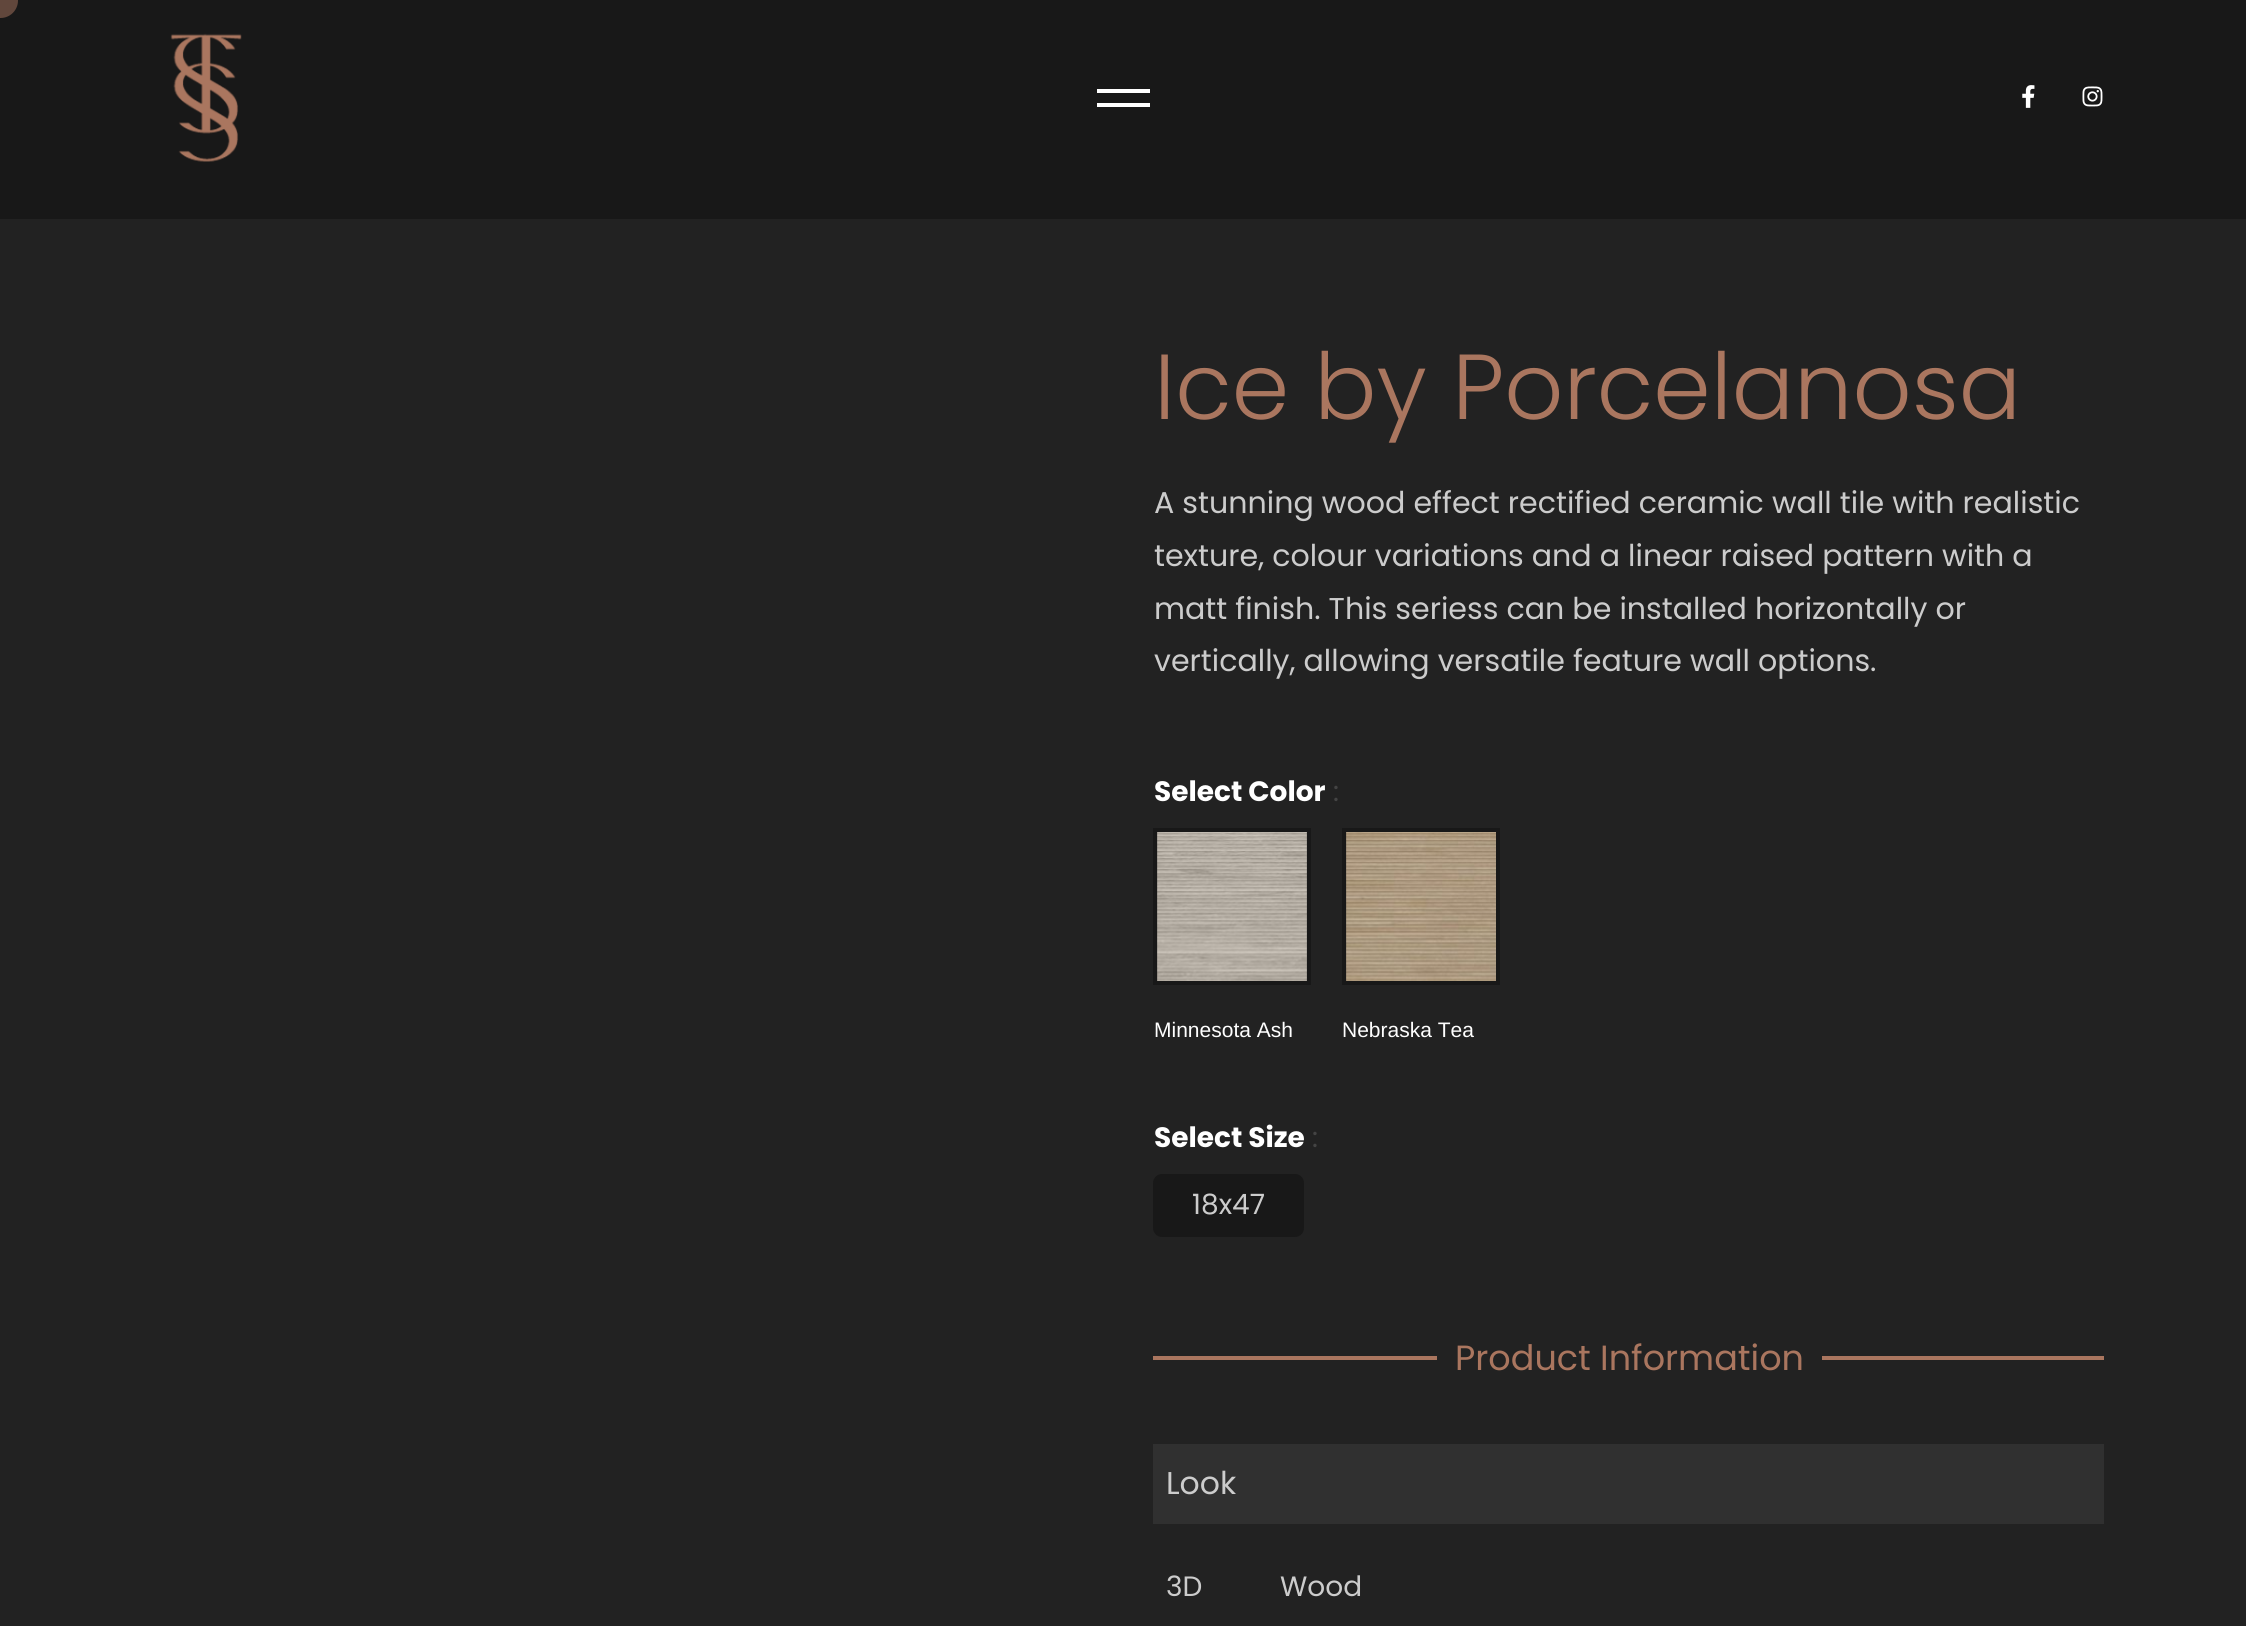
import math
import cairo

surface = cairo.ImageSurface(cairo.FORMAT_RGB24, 2246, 1626)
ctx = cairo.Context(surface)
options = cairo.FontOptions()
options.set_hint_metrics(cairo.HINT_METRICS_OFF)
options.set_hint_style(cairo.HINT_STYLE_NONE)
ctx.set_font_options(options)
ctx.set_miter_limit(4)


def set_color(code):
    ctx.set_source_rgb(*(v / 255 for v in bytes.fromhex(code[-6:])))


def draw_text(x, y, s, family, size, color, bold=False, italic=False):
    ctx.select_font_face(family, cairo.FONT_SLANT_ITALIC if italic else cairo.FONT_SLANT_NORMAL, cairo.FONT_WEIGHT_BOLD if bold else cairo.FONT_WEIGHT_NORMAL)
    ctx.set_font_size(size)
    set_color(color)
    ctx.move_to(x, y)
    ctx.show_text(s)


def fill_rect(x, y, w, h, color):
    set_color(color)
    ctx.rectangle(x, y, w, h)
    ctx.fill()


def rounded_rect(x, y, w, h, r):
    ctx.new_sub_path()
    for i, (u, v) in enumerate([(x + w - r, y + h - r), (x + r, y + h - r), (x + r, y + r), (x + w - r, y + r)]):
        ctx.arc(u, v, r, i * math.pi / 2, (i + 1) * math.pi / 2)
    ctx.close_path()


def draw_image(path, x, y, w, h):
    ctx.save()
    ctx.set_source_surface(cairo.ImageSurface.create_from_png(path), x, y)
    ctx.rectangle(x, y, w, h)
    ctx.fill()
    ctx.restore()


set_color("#181818")
ctx.paint()
set_color("#61473c")
ctx.arc(0.5, 0.5, 17.5, 0, 2 * math.pi)
ctx.fill()
draw_image("assets/img1.png", 170, 33, 72, 129)
fill_rect(1097, 89, 53, 4, "#ffffff")
fill_rect(1097, 103, 53, 4, "#ffffff")
draw_image("assets/img2.png", 2022, 85, 13, 23)
draw_image("assets/img3.png", 2082, 86, 21, 21)
fill_rect(0, 219, 2246, 1407, "#222222")
draw_text(1154, 419, "Ice by Porcelanosa", "Poppins Light", 92.25, "#aa765f")
draw_text(1154, 513, "A stunning wood effect rectified ceramic wall tile with realistic", "Poppins", 30.1, "#cccccc")
draw_text(1154, 566, "texture, colour variations and a linear raised pattern with a", "Poppins", 30.1, "#cccccc")
draw_text(1154, 619, "matt finish. This seriess can be installed horizontally or", "Poppins", 30.1, "#cccccc")
draw_text(1154, 671, "vertically, allowing versatile feature wall options.", "Poppins", 30.1, "#cccccc")
draw_text(1154, 801, "Select Color", "Poppins", 28, "#ffffff", bold=True)
draw_text(1333, 801, ":", "Poppins", 28, "#444444")
draw_image("assets/img4.png", 1157, 832, 150, 149)
ctx.rectangle(1155, 830, 154, 153)
set_color("#181818")
ctx.set_line_width(4)
ctx.stroke()
draw_text(1154, 1037, "Minnesota Ash", "Liberation Sans", 21, "#ffffff")
draw_image("assets/img5.png", 1346, 832, 150, 149)
ctx.rectangle(1344, 830, 154, 153)
set_color("#181818")
ctx.stroke()
draw_text(1342, 1037, "Nebraska Tea", "Liberation Sans", 21, "#ffffff")
draw_text(1154, 1147, "Select Size", "Poppins", 28, "#ffffff", bold=True)
draw_text(1312, 1147, ":", "Poppins", 28, "#444444")
set_color("#181818")
rounded_rect(1153, 1174, 151, 63, 9)
ctx.fill()
draw_text(1192, 1214, "18x47", "Poppins", 28, "#cccccc")
fill_rect(1153, 1356, 284, 4, "#aa765f")
draw_text(1455, 1370, "Product Information", "Poppins", 35, "#aa765f")
fill_rect(1822, 1356, 282, 4, "#aa765f")
fill_rect(1153, 1444, 951, 80, "#303030")
draw_text(1166, 1494, "Look", "Poppins", 31.5, "#cccccc")
draw_text(1166, 1596, "3D", "Poppins", 28, "#cccccc")
draw_text(1280, 1596, "Wood", "Poppins", 28, "#cccccc")
surface.write_to_png("output.png")
